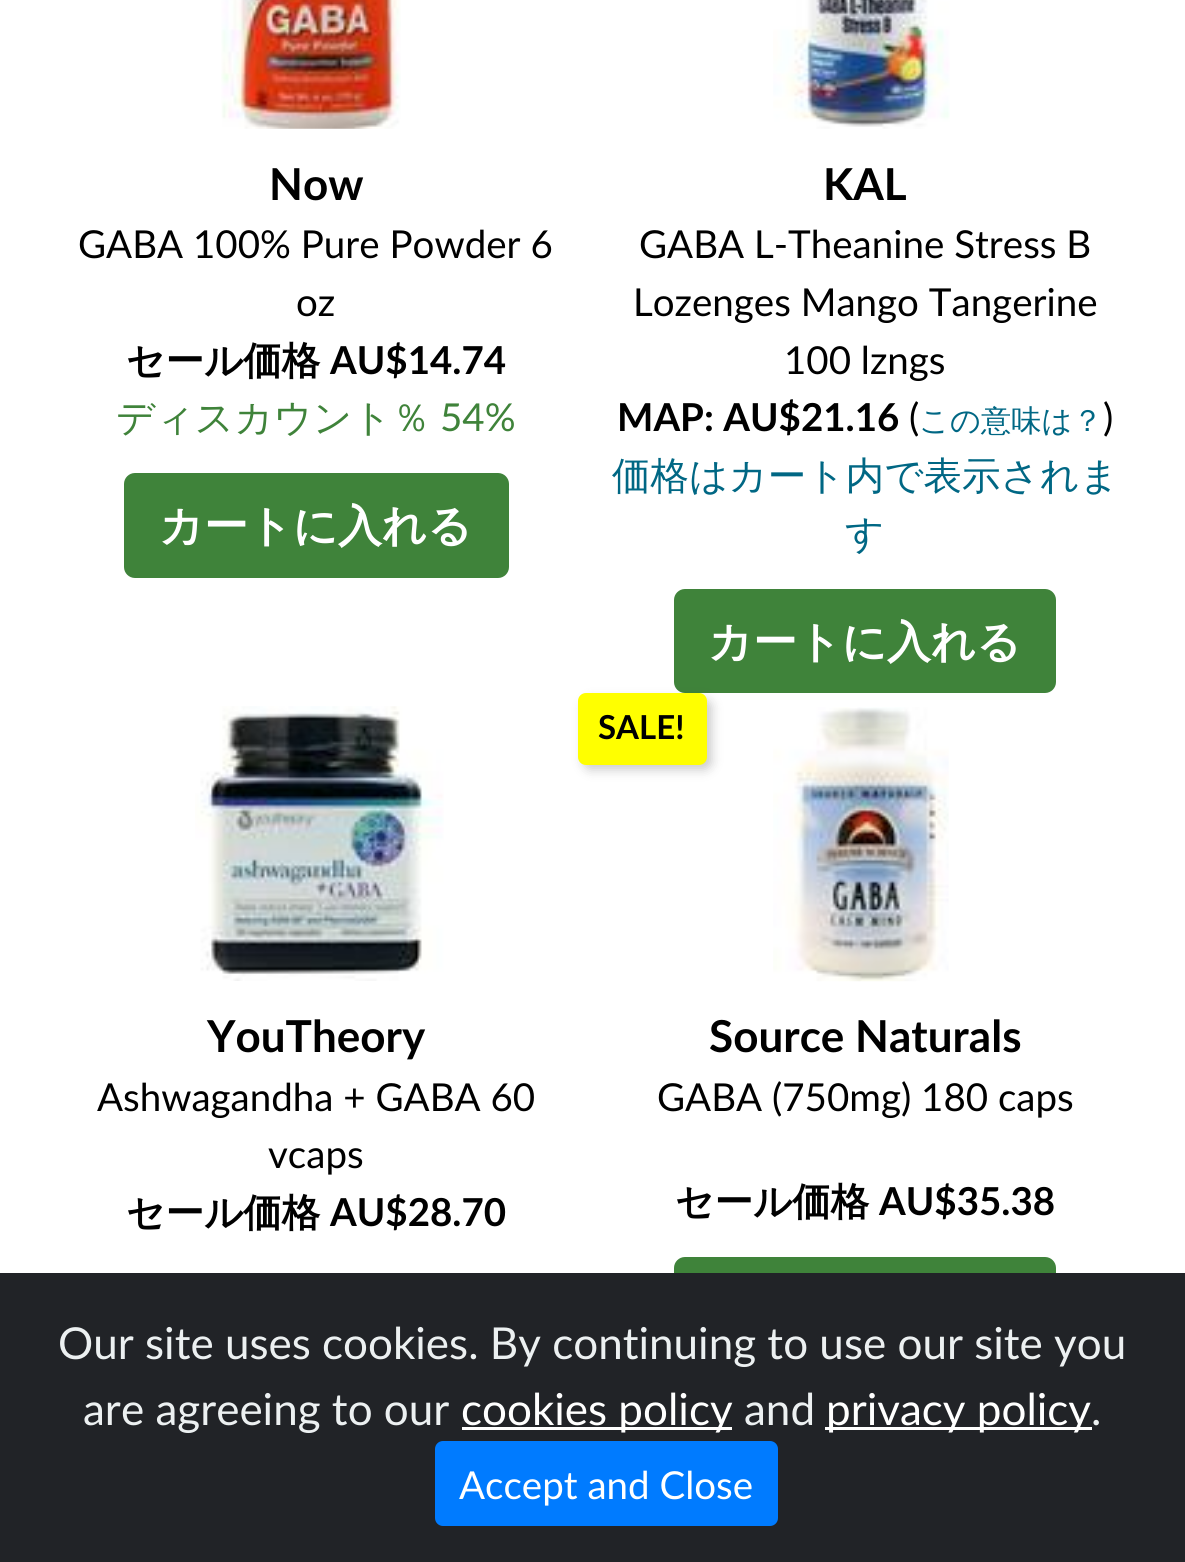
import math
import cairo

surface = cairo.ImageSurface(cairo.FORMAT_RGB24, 1185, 1562)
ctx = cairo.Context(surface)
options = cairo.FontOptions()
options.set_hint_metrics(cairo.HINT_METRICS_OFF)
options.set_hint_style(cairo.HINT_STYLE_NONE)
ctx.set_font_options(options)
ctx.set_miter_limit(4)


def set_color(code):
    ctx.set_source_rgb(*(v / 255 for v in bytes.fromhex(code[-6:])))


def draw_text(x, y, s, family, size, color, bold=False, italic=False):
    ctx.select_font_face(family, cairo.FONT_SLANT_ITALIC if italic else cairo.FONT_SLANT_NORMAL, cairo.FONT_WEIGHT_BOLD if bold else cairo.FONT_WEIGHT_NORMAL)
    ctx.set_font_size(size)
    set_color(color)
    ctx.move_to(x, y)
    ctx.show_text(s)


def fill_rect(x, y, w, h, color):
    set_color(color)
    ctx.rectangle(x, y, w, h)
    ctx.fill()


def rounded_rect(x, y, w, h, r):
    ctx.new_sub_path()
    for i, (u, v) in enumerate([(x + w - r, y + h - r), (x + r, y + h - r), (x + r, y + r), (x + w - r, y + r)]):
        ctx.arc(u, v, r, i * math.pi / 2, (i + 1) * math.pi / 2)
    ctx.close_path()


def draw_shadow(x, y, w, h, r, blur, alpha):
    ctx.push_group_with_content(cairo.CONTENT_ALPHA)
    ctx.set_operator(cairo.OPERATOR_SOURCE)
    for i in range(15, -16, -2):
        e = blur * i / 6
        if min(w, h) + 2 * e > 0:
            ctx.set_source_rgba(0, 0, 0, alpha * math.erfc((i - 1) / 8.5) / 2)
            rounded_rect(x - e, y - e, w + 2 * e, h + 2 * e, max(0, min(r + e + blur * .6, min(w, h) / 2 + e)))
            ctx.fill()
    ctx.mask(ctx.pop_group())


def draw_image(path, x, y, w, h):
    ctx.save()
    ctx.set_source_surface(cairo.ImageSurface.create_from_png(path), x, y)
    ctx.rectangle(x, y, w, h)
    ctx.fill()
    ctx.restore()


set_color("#ffffff")
ctx.paint()
draw_image("assets/img1.png", 221, 0, 180, 129)
draw_text(269, 200, "Now", "Lato", 44, "#000000", bold=True)
draw_text(78, 258, "GABA 100% Pure Powder 6", "Lato", 38.5, "#000000")
draw_text(296, 316, "oz", "Lato", 38.5, "#000000")
draw_text(126, 374, "セール価格", "WenQuanYi Zen Hei", 38.5, "#000000", bold=True)
draw_text(330, 374, "AU$14.74", "Lato", 38.5, "#000000", bold=True)
draw_text(116, 431, "ディスカウント％", "WenQuanYi Zen Hei Medium", 38.5, "#3f833a")
draw_text(440, 431, "54%", "Lato", 38.5, "#3f833a")
rounded_rect(124, 473, 385, 105, 11)
ctx.fill()
draw_text(159, 541, "カートに入れる", "WenQuanYi Zen Hei", 44, "#ffffff", bold=True)
draw_image("assets/img2.png", 773, 0, 177, 129)
draw_text(823, 200, "KAL", "Lato", 44, "#000000", bold=True)
draw_text(639, 258, "GABA L-Theanine Stress B", "Lato", 38.5, "#000000")
draw_text(633, 316, "Lozenges Mango Tangerine", "Lato", 38.5, "#000000")
draw_text(784, 374, "100 lzngs", "Lato", 38.5, "#000000")
draw_text(617, 431, "MAP: AU$21.16", "Lato", 38.5, "#000000", bold=True)
draw_text(909, 431, "(", "Lato", 38.5, "#000000")
draw_text(919, 431, "この意味は？", "WenQuanYi Zen Hei Medium", 30.25, "#006784")
draw_text(1103, 431, ")", "Lato", 38.5, "#000000")
draw_text(612, 489, "価格はカート内で表示されま", "WenQuanYi Zen Hei Medium", 38.5, "#006784")
draw_text(845, 547, "す", "WenQuanYi Zen Hei Medium", 38.5, "#006784")
set_color("#3f833a")
rounded_rect(674, 589, 382, 104, 11)
ctx.fill()
draw_text(708, 657, "カートに入れる", "WenQuanYi Zen Hei", 44, "#ffffff", bold=True)
draw_image("assets/img3.png", 195, 706, 249, 275)
draw_text(207, 1052, "YouTheory", "Lato", 44, "#000000", bold=True)
draw_text(97, 1111, "Ashwagandha + GABA 60", "Lato", 38.5, "#000000")
draw_text(268, 1168, "vcaps", "Lato", 38.5, "#000000")
draw_text(126, 1226, "セール価格", "WenQuanYi Zen Hei", 38.5, "#000000", bold=True)
draw_text(330, 1226, "AU$28.70", "Lato", 38.5, "#000000", bold=True)
set_color("#000000")
draw_shadow(583, 699, 129, 71, 8, 5.5, 0.2)
set_color("#ffff00")
rounded_rect(578, 693, 129, 72, 8)
ctx.fill()
draw_text(598, 739, "SALE!", "Lato", 33, "#000000", bold=True)
draw_image("assets/img4.png", 773, 707, 176, 275)
draw_text(709, 1052, "Source Naturals", "Lato", 44, "#000000", bold=True)
draw_text(657, 1111, "GABA (750mg) 180 caps", "Lato", 38.5, "#000000")
draw_text(675, 1215, "セール価格", "WenQuanYi Zen Hei", 38.5, "#000000", bold=True)
draw_text(879, 1215, "AU$35.38", "Lato", 38.5, "#000000", bold=True)
set_color("#3f833a")
rounded_rect(674, 1257, 382, 104, 11)
ctx.fill()
fill_rect(0, 1273, 1185, 289, "#212327")
draw_text(58, 1359, "Our site uses cookies. By continuing to use our site you", "Lato", 44, "#ecf0f1")
draw_text(83, 1425, "are agreeing to our", "Lato", 44, "#ecf0f1")
fill_rect(462, 1427, 270, 3, "#ffffff")
draw_text(461, 1425, "cookies policy", "Lato", 44, "#ffffff")
draw_text(744, 1425, "and", "Lato", 44, "#ecf0f1")
fill_rect(825, 1427, 267, 3, "#ffffff")
draw_text(826, 1425, "privacy policy", "Lato", 44, "#ffffff")
draw_text(1091, 1425, ".", "Lato", 44, "#ecf0f1")
set_color("#007bff")
rounded_rect(436.5, 1442.5, 340, 82, 6.5)
ctx.fill_preserve()
ctx.set_line_width(3)
ctx.stroke()
draw_text(459, 1499, "Accept and Close", "Lato", 38.5, "#ffffff")
surface.write_to_png("output.png")
